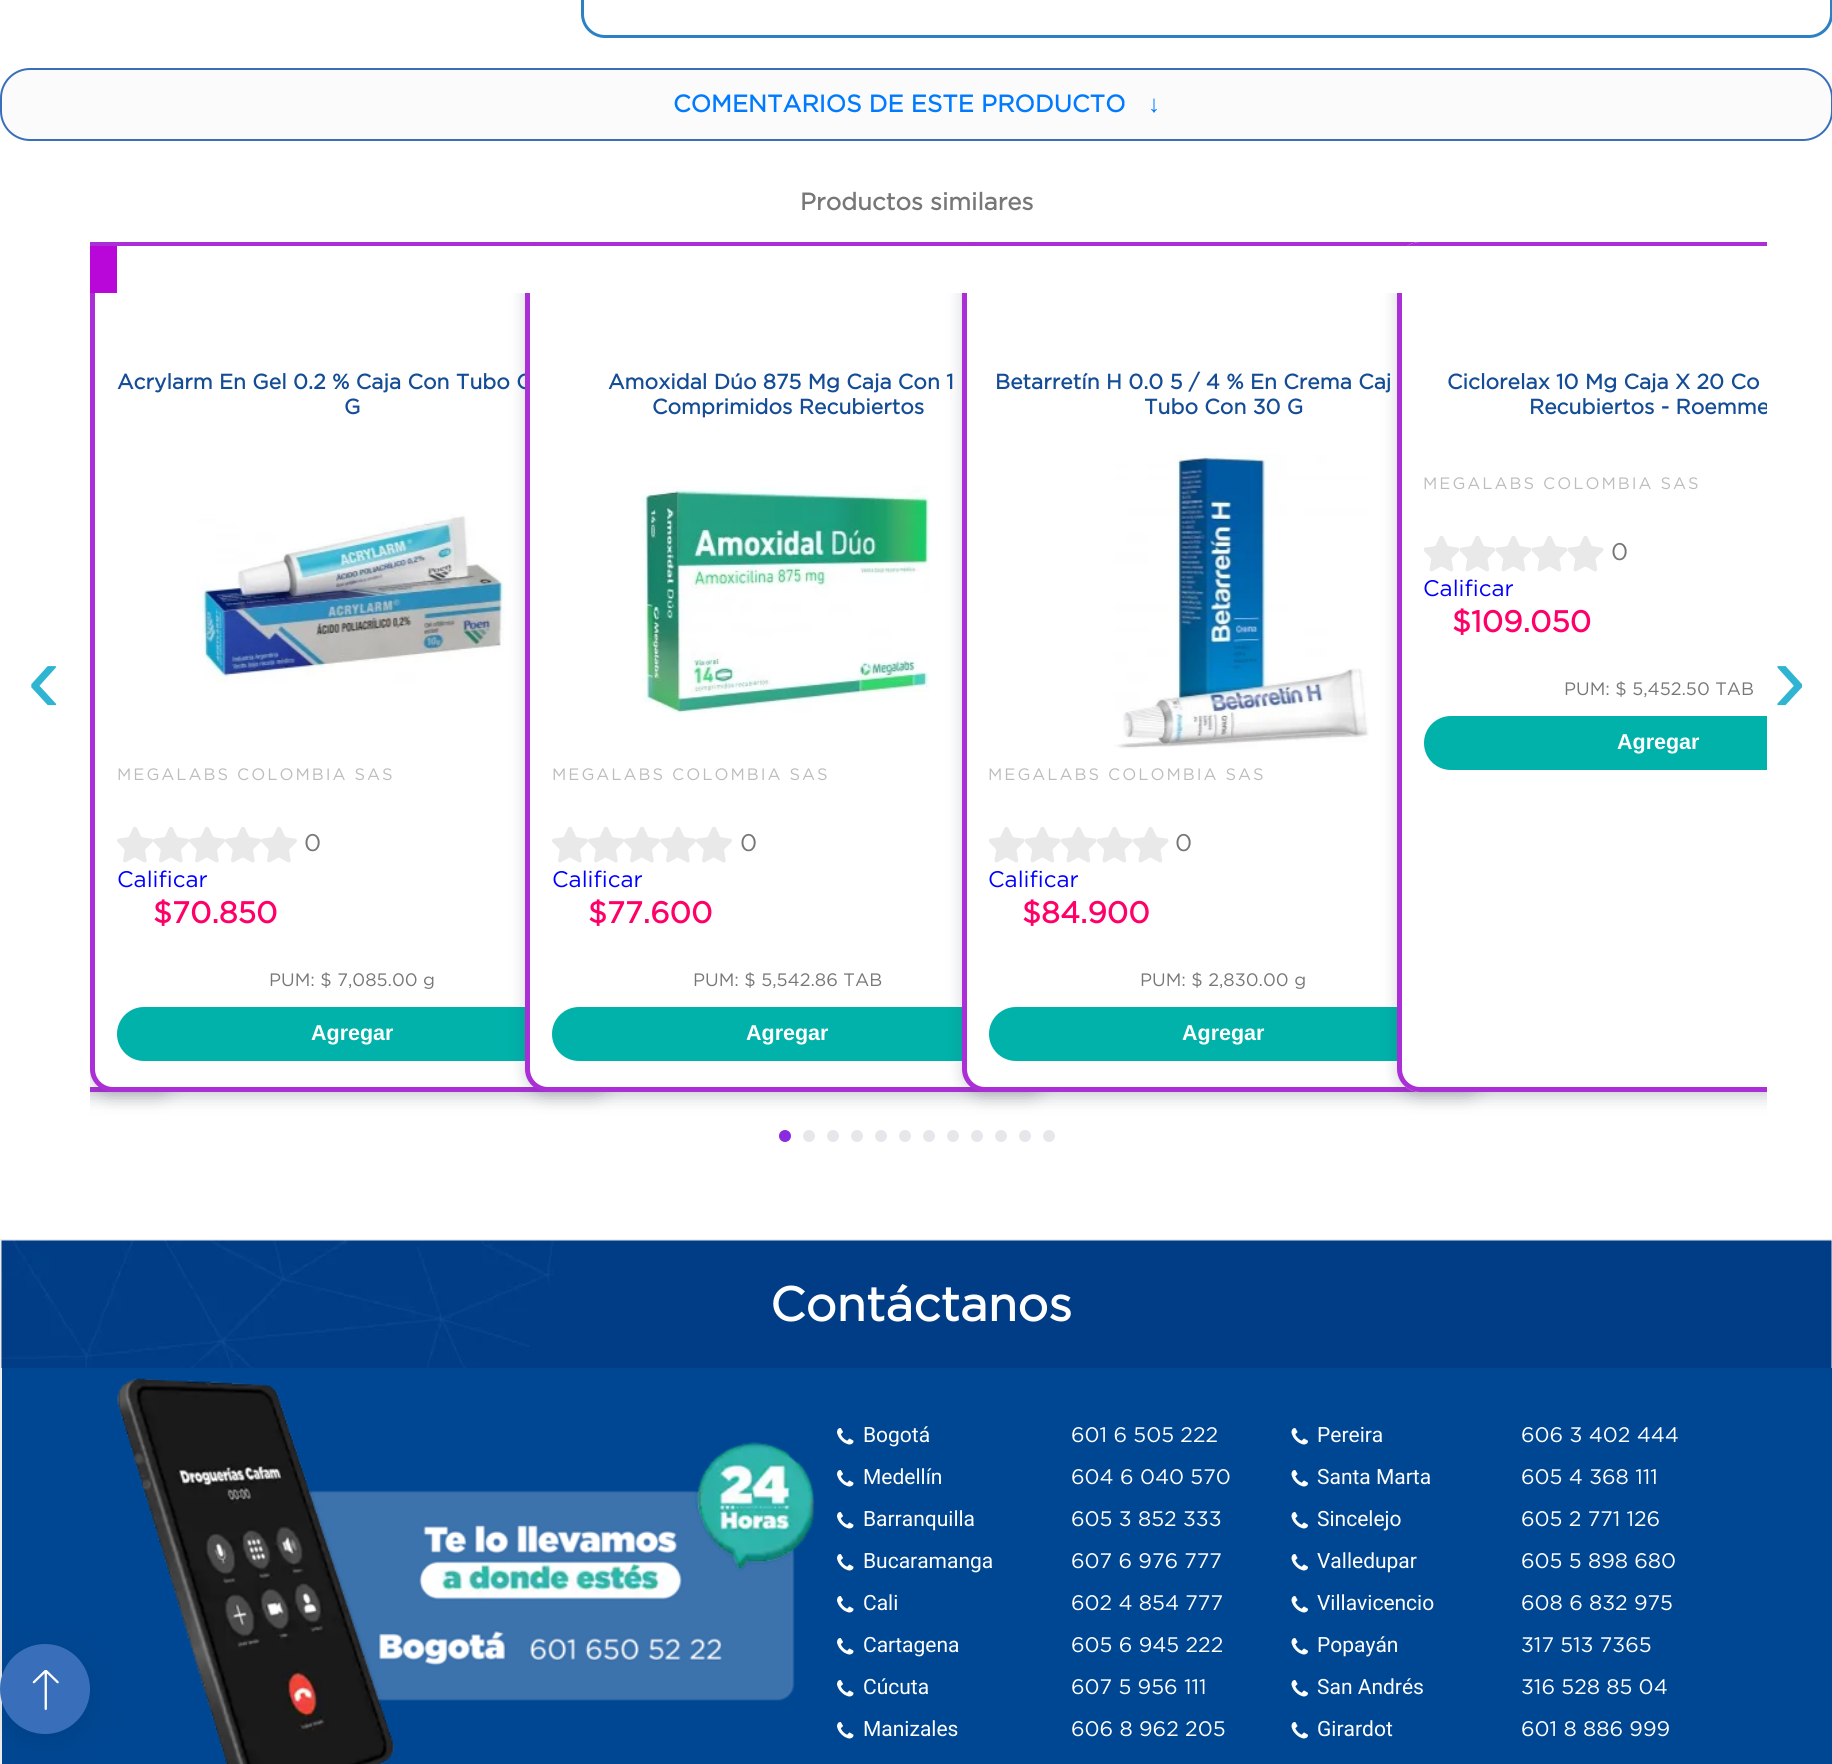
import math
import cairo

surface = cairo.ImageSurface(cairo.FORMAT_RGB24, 1832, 1764)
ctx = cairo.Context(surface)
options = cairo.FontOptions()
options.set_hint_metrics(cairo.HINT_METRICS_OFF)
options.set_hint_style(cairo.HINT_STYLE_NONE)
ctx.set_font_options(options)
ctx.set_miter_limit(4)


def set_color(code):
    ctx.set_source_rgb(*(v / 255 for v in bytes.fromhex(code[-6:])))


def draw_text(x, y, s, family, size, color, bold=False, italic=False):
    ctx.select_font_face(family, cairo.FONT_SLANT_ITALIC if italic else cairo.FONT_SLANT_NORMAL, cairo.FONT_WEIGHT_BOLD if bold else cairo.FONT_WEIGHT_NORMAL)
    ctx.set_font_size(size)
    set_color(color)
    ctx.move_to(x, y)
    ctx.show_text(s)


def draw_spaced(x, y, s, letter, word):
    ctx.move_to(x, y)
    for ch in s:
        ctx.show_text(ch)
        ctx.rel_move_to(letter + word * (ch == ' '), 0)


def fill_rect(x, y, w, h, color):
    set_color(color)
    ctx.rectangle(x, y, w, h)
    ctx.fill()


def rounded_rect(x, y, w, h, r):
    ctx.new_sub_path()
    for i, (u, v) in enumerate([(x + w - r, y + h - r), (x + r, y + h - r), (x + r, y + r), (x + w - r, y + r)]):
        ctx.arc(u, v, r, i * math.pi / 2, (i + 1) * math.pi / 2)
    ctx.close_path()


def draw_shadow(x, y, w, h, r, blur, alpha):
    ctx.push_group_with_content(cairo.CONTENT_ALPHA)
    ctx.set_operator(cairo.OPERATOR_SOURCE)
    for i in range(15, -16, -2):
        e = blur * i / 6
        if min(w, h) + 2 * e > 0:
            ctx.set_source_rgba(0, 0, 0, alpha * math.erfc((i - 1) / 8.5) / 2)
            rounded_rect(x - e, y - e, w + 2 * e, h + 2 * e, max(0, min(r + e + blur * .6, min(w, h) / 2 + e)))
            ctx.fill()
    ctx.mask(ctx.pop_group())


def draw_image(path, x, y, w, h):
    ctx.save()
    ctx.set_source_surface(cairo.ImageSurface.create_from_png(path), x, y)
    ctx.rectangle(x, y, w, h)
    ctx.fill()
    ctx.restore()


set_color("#ffffff")
ctx.paint()
rounded_rect(582.5, -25.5, 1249, 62, 22.5)
set_color("#2c80c4")
ctx.set_line_width(3)
ctx.stroke()
set_color("#fbfbfb")
rounded_rect(1, 69, 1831, 71, 29)
ctx.fill_preserve()
set_color("#396fba")
ctx.set_line_width(2)
ctx.stroke()
draw_text(673, 112, "COMENTARIOS DE ESTE PRODUCTO", "Gotham", 24, "#007bff", bold=True)
draw_text(1148, 112, "↓", "Liberation Sans", 24, "#007bff", bold=True)
draw_text(800, 210, "Productos similares", "Gotham", 24, "#777777", bold=True)
ctx.save()
ctx.rectangle(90, 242, 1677, 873)
ctx.clip()
set_color("#43475a")
draw_shadow(-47, 251, 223, 844, 20, 9, 0.32)
ctx.restore()
fill_rect(90, 1069, 9, 18, "#ffffff")
ctx.save()
ctx.rectangle(90, 242, 1677, 873)
ctx.clip()
rounded_rect(-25.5, 244.5, 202, 845, 20.5)
set_color("#ab2fd6")
ctx.set_line_width(5)
ctx.stroke()
ctx.restore()
draw_text(27, 712, "‹", "Liberation Sans", 100, "#2fb5d2")
ctx.save()
ctx.rectangle(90, 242, 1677, 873)
ctx.clip()
set_color("#43475a")
draw_shadow(93, 251, 519, 844, 20, 9, 0.32)
ctx.restore()
set_color("#ffffff")
rounded_rect(92.5, 244.5, 520, 845, 20.5)
ctx.fill_preserve()
set_color("#ab2fd6")
ctx.set_line_width(5)
ctx.stroke()
fill_rect(90, 246, 27, 47, "#b807d8")
draw_image("assets/img1.png", 196, 514, 309, 169)
set_color("#00b2a9")
rounded_rect(117, 1007, 471, 54, 27)
ctx.fill()
ctx.save()
ctx.rectangle(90, 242, 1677, 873)
ctx.clip()
set_color("#43475a")
draw_shadow(528, 251, 519, 844, 20, 9, 0.32)
ctx.restore()
draw_text(117, 389, "Acrylarm En Gel 0.2 % Caja Con Tubo C", "Gotham", 21, "#144d96", bold=True)
set_color("#ffffff")
rounded_rect(527.5, 244.5, 520, 845, 20.5)
ctx.fill_preserve()
set_color("#ab2fd6")
ctx.stroke()
set_color("#00b2a9")
rounded_rect(552, 1007, 471, 54, 27)
ctx.fill()
ctx.save()
ctx.rectangle(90, 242, 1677, 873)
ctx.clip()
set_color("#43475a")
draw_shadow(965, 251, 519, 844, 20, 9, 0.32)
ctx.restore()
set_color("#ffffff")
rounded_rect(964.5, 244.5, 520, 845, 20.5)
ctx.fill_preserve()
set_color("#ab2fd6")
ctx.stroke()
set_color("#00b2a9")
rounded_rect(989, 1007, 471, 54, 27)
ctx.fill()
ctx.save()
ctx.rectangle(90, 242, 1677, 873)
ctx.clip()
set_color("#43475a")
draw_shadow(1400, 251, 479, 844, 20, 9, 0.32)
ctx.restore()
set_color("#ffffff")
ctx.new_path()
ctx.move_to(1420, 242)
ctx.line_to(1767, 242)
ctx.line_to(1767, 1092)
ctx.line_to(1420, 1092)
ctx.curve_to(1407.5, 1092, 1397, 1081.5, 1397, 1069)
ctx.line_to(1397, 265)
ctx.curve_to(1397, 252.5, 1407.5, 242, 1420, 242)
ctx.close_path()
ctx.fill()
ctx.save()
ctx.rectangle(90, 242, 1677, 873)
ctx.clip()
rounded_rect(1399.5, 244.5, 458, 845, 20.5)
set_color("#ab2fd6")
ctx.stroke()
ctx.restore()
fill_rect(117, 246, 1307, 47, "#ffffff")
draw_text(344, 414, "G", "Gotham", 21, "#144d96", bold=True)
ctx.select_font_face("Gotham")
ctx.set_font_size(16.5)
set_color("#bcbcbc")
draw_spaced(117, 780, "MEGALABS COLOMBIA SAS", 2, 0)
draw_image("assets/img2.png", 117, 827, 36, 36)
draw_image("assets/img2.png", 153, 827, 36, 36)
draw_image("assets/img2.png", 189, 827, 36, 36)
draw_image("assets/img2.png", 225, 827, 36, 36)
draw_image("assets/img2.png", 261, 827, 36, 36)
draw_text(304, 851, "0", "Gotham", 24, "#777777")
draw_text(117, 887, "Calificar", "Gotham", 22.5, "#0000ff")
draw_text(153, 923, "$70.850", "Gotham", 30, "#ff0068", bold=True)
draw_text(269, 986, "PUM: $ 7,085.00 g", "Gotham", 18, "#777777")
draw_text(311, 1040, "Agregar", "Liberation Sans", 21.5, "#ffffff", bold=True)
draw_text(608, 389, "Amoxidal Dúo 875 Mg Caja Con 1", "Gotham", 21, "#144d96", bold=True)
draw_text(652, 414, "Comprimidos Recubiertos", "Gotham", 21, "#144d96", bold=True)
draw_image("assets/img3.png", 641, 486, 289, 228)
ctx.select_font_face("Gotham")
ctx.set_font_size(16.5)
set_color("#bcbcbc")
draw_spaced(552, 780, "MEGALABS COLOMBIA SAS", 2, 0)
draw_image("assets/img2.png", 552, 827, 36, 36)
draw_image("assets/img2.png", 588, 827, 36, 36)
draw_image("assets/img2.png", 624, 827, 36, 36)
draw_image("assets/img2.png", 660, 827, 36, 36)
draw_image("assets/img2.png", 696, 827, 36, 36)
draw_text(740, 851, "0", "Gotham", 24, "#777777")
draw_text(552, 887, "Calificar", "Gotham", 22.5, "#0000ff")
draw_text(588, 923, "$77.600", "Gotham", 30, "#ff0068", bold=True)
draw_text(693, 986, "PUM: $ 5,542.86 TAB", "Gotham", 18, "#777777")
draw_text(746, 1040, "Agregar", "Liberation Sans", 21.5, "#ffffff", bold=True)
draw_text(995, 389, "Betarretín H 0.0 5 / 4 % En Crema Caj", "Gotham", 21, "#144d96", bold=True)
draw_text(1144, 414, "Tubo Con 30 G", "Gotham", 21, "#144d96", bold=True)
draw_image("assets/img4.png", 1114, 454, 255, 295)
ctx.select_font_face("Gotham")
ctx.set_font_size(16.5)
set_color("#bcbcbc")
draw_spaced(988, 780, "MEGALABS COLOMBIA SAS", 2, 0)
draw_image("assets/img5.png", 989, 827, 36, 36)
draw_image("assets/img5.png", 1025, 827, 36, 36)
draw_image("assets/img5.png", 1061, 827, 36, 36)
draw_image("assets/img5.png", 1097, 827, 36, 36)
draw_image("assets/img5.png", 1133, 827, 36, 36)
draw_text(1175, 851, "0", "Gotham", 24, "#777777")
draw_text(988, 887, "Calificar", "Gotham", 22.5, "#0000ff")
draw_text(1022, 923, "$84.900", "Gotham", 30, "#ff0068", bold=True)
draw_text(1140, 986, "PUM: $ 2,830.00 g", "Gotham", 18, "#777777")
draw_text(1182, 1040, "Agregar", "Liberation Sans", 21.5, "#ffffff", bold=True)
fill_rect(1424, 246, 343, 1, "#ffffff")
draw_text(1447, 389, "Ciclorelax 10 Mg Caja X 20 Co", "Gotham", 21, "#144d96", bold=True)
ctx.save()
ctx.rectangle(90, 242, 1677, 873)
ctx.clip()
draw_text(1529, 414, "Recubiertos - Roemme", "Gotham", 21, "#144d96", bold=True)
ctx.restore()
ctx.select_font_face("Gotham")
ctx.set_font_size(16.5)
set_color("#bcbcbc")
draw_spaced(1423, 489, "MEGALABS COLOMBIA SAS", 2, 0)
draw_image("assets/img5.png", 1424, 536, 36, 36)
draw_image("assets/img5.png", 1460, 536, 36, 36)
draw_image("assets/img5.png", 1496, 536, 36, 36)
draw_image("assets/img5.png", 1532, 536, 36, 36)
draw_image("assets/img5.png", 1568, 536, 36, 36)
draw_text(1611, 560, "0", "Gotham", 24, "#777777")
draw_text(1423, 596, "Calificar", "Gotham", 22.5, "#0000ff")
draw_text(1452, 632, "$109.050", "Gotham", 30, "#ff0068", bold=True)
draw_text(1564, 695, "PUM: $ 5,452.50 TAB", "Gotham", 18, "#777777")
set_color("#00b2a9")
ctx.new_path()
ctx.move_to(1451, 716)
ctx.line_to(1767, 716)
ctx.line_to(1767, 770)
ctx.line_to(1451, 770)
ctx.curve_to(1436, 770, 1424, 758, 1424, 743)
ctx.curve_to(1424, 728, 1436, 716, 1451, 716)
ctx.close_path()
ctx.fill()
draw_text(1617, 749, "Agregar", "Liberation Sans", 21.5, "#ffffff", bold=True)
draw_text(1773, 712, "›", "Liberation Sans", 100, "#2fb5d2")
set_color("#8a2be2")
ctx.new_path()
ctx.arc(785, 1136, 6, 0, 2 * math.pi)
ctx.fill()
set_color("#e5e7eb")
ctx.arc(809, 1136, 6, 0, 2 * math.pi)
ctx.fill()
ctx.arc(833, 1136, 6, 0, 2 * math.pi)
ctx.fill()
ctx.arc(857, 1136, 6, 0, 2 * math.pi)
ctx.fill()
ctx.arc(881, 1136, 6, 0, 2 * math.pi)
ctx.fill()
ctx.arc(905, 1136, 6, 0, 2 * math.pi)
ctx.fill()
ctx.arc(929, 1136, 6, 0, 2 * math.pi)
ctx.fill()
ctx.arc(953, 1136, 6, 0, 2 * math.pi)
ctx.fill()
ctx.arc(977, 1136, 6, 0, 2 * math.pi)
ctx.fill()
ctx.arc(1001, 1136, 6, 0, 2 * math.pi)
ctx.fill()
ctx.arc(1025, 1136, 6, 0, 2 * math.pi)
ctx.fill()
ctx.arc(1049, 1136, 6, 0, 2 * math.pi)
ctx.fill()
ctx.rectangle(1, 1240, 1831, 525)
set_color("#eeeeee")
ctx.set_line_width(2)
ctx.stroke()
draw_image("assets/img6.png", 1, 1240, 1831, 128)
draw_text(770, 1321, "Contáctanos", "Gotham", 48, "#ffffff", bold=True)
fill_rect(2, 1368, 1830, 396, "#004793")
draw_image("assets/img7.png", 117, 1378, 698, 386)
draw_image("assets/img8.png", 837, 1428, 17, 17)
draw_text(863, 1442, "Bogotá", "Roboto", 21, "#ffffff")
draw_image("assets/img8.png", 837, 1470, 17, 17)
draw_text(863, 1484, "Medellín", "Roboto", 21, "#ffffff")
draw_image("assets/img8.png", 837, 1512, 17, 17)
draw_text(863, 1526, "Barranquilla", "Roboto", 21, "#ffffff")
draw_image("assets/img8.png", 837, 1554, 17, 17)
draw_text(863, 1568, "Bucaramanga", "Roboto", 21, "#ffffff")
draw_image("assets/img8.png", 837, 1596, 17, 17)
draw_text(863, 1610, "Cali", "Roboto", 21, "#ffffff")
draw_image("assets/img8.png", 837, 1638, 17, 17)
draw_text(863, 1652, "Cartagena", "Roboto", 21, "#ffffff")
draw_image("assets/img8.png", 837, 1680, 17, 17)
draw_text(863, 1694, "Cúcuta", "Roboto", 21, "#ffffff")
draw_image("assets/img8.png", 837, 1722, 17, 17)
draw_text(863, 1736, "Manizales", "Roboto", 21, "#ffffff")
draw_text(1071, 1442, "601 6 505 222", "Gotham", 21, "#ffffff")
draw_text(1071, 1484, "604 6 040 570", "Gotham", 21, "#ffffff")
draw_text(1071, 1526, "605 3 852 333", "Gotham", 21, "#ffffff")
draw_text(1071, 1568, "607 6 976 777", "Gotham", 21, "#ffffff")
draw_text(1071, 1610, "602 4 854 777", "Gotham", 21, "#ffffff")
draw_text(1071, 1652, "605 6 945 222", "Gotham", 21, "#ffffff")
draw_text(1071, 1694, "607 5 956 111", "Gotham", 21, "#ffffff")
draw_text(1071, 1736, "606 8 962 205", "Gotham", 21, "#ffffff")
draw_image("assets/img9.png", 1291, 1428, 17, 17)
draw_text(1317, 1442, "Pereira", "Roboto", 21, "#ffffff")
draw_image("assets/img9.png", 1291, 1470, 17, 17)
draw_text(1317, 1484, "Santa Marta", "Roboto", 21, "#ffffff")
draw_image("assets/img9.png", 1291, 1512, 17, 17)
draw_text(1317, 1526, "Sincelejo", "Roboto", 21, "#ffffff")
draw_image("assets/img9.png", 1291, 1554, 17, 17)
draw_text(1317, 1568, "Valledupar", "Roboto", 21, "#ffffff")
draw_image("assets/img9.png", 1291, 1596, 17, 17)
draw_text(1317, 1610, "Villavicencio", "Roboto", 21, "#ffffff")
draw_image("assets/img9.png", 1291, 1638, 17, 17)
draw_text(1317, 1652, "Popayán", "Roboto", 21, "#ffffff")
draw_image("assets/img9.png", 1291, 1680, 17, 17)
draw_text(1317, 1694, "San Andrés", "Roboto", 21, "#ffffff")
draw_image("assets/img9.png", 1291, 1722, 17, 17)
draw_text(1317, 1736, "Girardot", "Roboto", 21, "#ffffff")
draw_text(1521, 1442, "606 3 402 444", "Gotham", 21, "#ffffff")
draw_text(1521, 1484, "605 4 368 111", "Gotham", 21, "#ffffff")
draw_text(1521, 1526, "605 2 771 126", "Gotham", 21, "#ffffff")
draw_text(1521, 1568, "605 5 898 680", "Gotham", 21, "#ffffff")
draw_text(1521, 1610, "608 6 832 975", "Gotham", 21, "#ffffff")
draw_text(1521, 1652, "317 513 7365", "Gotham", 21, "#ffffff")
draw_text(1521, 1694, "316 528 85 04", "Gotham", 21, "#ffffff")
draw_text(1521, 1736, "601 8 886 999", "Gotham", 21, "#ffffff")
set_color("#000000")
draw_shadow(0, 1652, 90, 90, 45, 20, 0.09)
set_color("#396fba")
ctx.arc(45, 1689, 45, 0, 2 * math.pi)
ctx.fill()
draw_image("assets/img10.png", 32, 1670, 27, 40)
surface.write_to_png("output.png")
